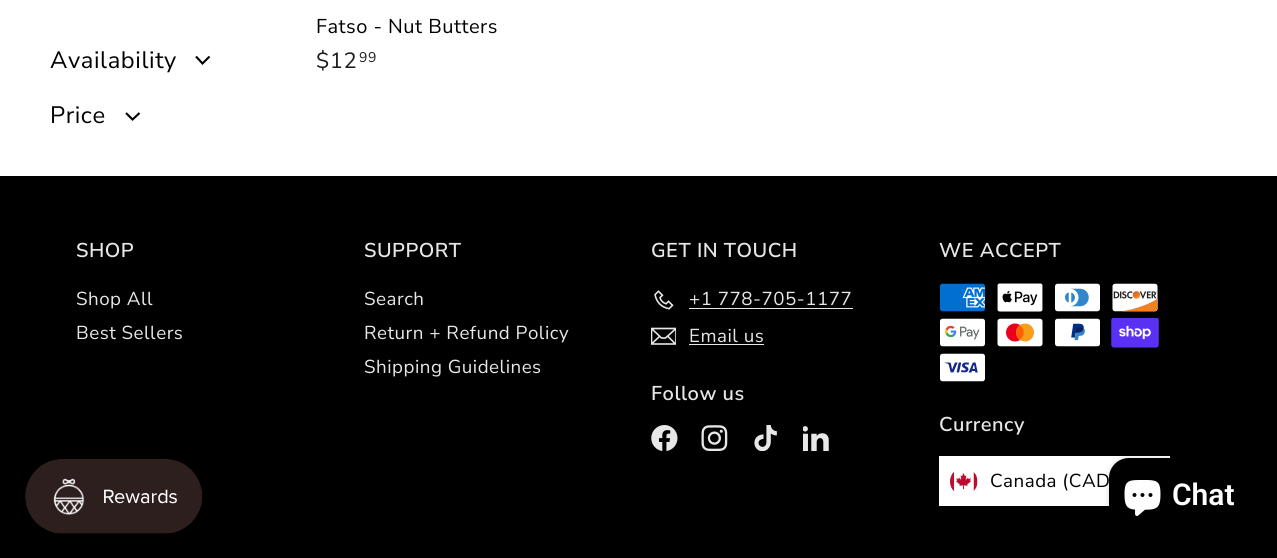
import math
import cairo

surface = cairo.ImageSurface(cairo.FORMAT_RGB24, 1277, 558)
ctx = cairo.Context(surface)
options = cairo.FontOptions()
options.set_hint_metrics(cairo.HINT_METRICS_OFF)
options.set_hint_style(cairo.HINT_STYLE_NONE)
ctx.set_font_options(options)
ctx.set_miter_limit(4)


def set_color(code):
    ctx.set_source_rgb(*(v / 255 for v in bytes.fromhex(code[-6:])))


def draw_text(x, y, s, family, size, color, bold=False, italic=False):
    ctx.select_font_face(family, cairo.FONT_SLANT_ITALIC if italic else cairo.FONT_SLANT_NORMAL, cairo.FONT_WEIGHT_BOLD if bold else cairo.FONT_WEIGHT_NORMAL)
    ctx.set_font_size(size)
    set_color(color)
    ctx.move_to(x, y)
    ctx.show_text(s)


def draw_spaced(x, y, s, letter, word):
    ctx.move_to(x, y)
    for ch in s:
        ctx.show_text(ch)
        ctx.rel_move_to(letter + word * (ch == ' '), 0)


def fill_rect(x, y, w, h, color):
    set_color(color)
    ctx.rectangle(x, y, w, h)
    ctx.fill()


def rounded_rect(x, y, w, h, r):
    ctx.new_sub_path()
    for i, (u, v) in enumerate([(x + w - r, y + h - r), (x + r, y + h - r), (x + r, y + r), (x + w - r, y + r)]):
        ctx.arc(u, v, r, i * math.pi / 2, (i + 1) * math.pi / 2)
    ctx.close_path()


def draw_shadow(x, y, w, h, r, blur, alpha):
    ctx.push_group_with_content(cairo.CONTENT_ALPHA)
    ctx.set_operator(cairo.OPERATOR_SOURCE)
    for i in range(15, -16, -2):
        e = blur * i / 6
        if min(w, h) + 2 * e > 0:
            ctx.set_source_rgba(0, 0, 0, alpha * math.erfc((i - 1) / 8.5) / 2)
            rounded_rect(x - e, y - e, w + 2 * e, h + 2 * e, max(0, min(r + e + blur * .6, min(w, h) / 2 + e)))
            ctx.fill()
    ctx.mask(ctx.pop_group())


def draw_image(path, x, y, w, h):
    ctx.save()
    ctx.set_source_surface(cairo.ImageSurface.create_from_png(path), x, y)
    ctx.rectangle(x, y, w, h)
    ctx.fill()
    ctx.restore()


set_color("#ffffff")
ctx.paint()
ctx.select_font_face("Nunito Sans")
ctx.set_font_size(20)
set_color("#000000")
draw_spaced(316, 33, "Fatso - Nut Butters", 0.5, 0)
ctx.set_font_size(22)
set_color("#1c1d1d")
draw_spaced(316, 68, "$12", 0.5, 0)
ctx.set_font_size(14)
draw_spaced(359, 62, "99", 0.5, 0)
ctx.set_font_size(23.75)
set_color("#000000")
draw_spaced(50, 68, "Availability", 0.6, 0)
ctx.new_path()
ctx.move_to(196, 56.5)
ctx.line_to(202.5, 63.5)
ctx.line_to(209.5, 56.5)
ctx.set_line_width(2.1)
ctx.stroke()
draw_spaced(50, 123, "Price", 0.6, 0)
ctx.new_path()
ctx.move_to(126, 113)
ctx.line_to(132.5, 119.5)
ctx.line_to(139.5, 113)
ctx.stroke()
fill_rect(0, 176, 1277, 382, "#000000")
ctx.select_font_face("Nunito Sans SemiBold")
ctx.set_font_size(20)
set_color("#e7e7e7")
draw_spaced(76, 257, "SHOP", 0.5, 0)
ctx.select_font_face("Nunito Sans")
ctx.set_font_size(18.75)
draw_spaced(76, 305, "Shop All", 0.5, 0)
draw_spaced(76, 339, "Best Sellers", 0.5, 0)
ctx.select_font_face("Nunito Sans SemiBold")
ctx.set_font_size(20)
draw_spaced(364, 257, "SUPPORT", 0.5, 0)
ctx.select_font_face("Nunito Sans")
ctx.set_font_size(18.75)
draw_spaced(364, 305, "Search", 0.5, 0)
draw_spaced(364, 339, "Return + Refund Policy", 0.5, 0)
draw_spaced(364, 373, "Shipping Guidelines", 0.5, 0)
ctx.select_font_face("Nunito Sans SemiBold")
ctx.set_font_size(20)
draw_spaced(651, 257, "GET IN TOUCH", 0.5, 0)
draw_image("assets/img1.png", 654, 290, 20, 20)
ctx.select_font_face("Nunito Sans")
ctx.set_font_size(18.75)
draw_spaced(689, 305, "+1 778-705-1177", 0.5, 0)
fill_rect(689, 308, 164, 1, "#e7e7e7")
ctx.save()
ctx.rectangle(651, 324, 25, 25)
ctx.clip()
ctx.new_path()
ctx.move_to(676, 344)
ctx.line_to(651.5, 344)
ctx.line_to(651.5, 328.5)
ctx.line_to(676, 328.5)
ctx.close_path()
ctx.move_to(651.5, 328.5)
ctx.line_to(661.5, 338)
ctx.line_to(665.5, 338)
ctx.line_to(676, 328.5)
ctx.move_to(660, 336)
ctx.line_to(652, 343.5)
ctx.move_to(675.5, 344)
ctx.line_to(667.5, 336)
ctx.set_line_width(1.6)
ctx.stroke()
ctx.restore()
draw_spaced(689, 342, "Email us", 0.5, 0)
fill_rect(689, 344, 75, 1, "#e7e7e7")
ctx.select_font_face("Nunito Sans SemiBold")
ctx.set_font_size(20)
draw_spaced(651, 400, "Follow us", 0.5, 0)
draw_image("assets/img2.png", 651, 425, 27, 26)
draw_image("assets/img3.png", 701, 425, 27, 26)
draw_image("assets/img4.png", 754, 425, 23, 26)
draw_image("assets/img5.png", 803, 426, 26, 25)
draw_spaced(939, 257, "WE ACCEPT", 0.5, 0)
draw_image("assets/img6.png", 940, 283, 45, 29)
draw_image("assets/img7.png", 997, 283, 46, 29)
draw_image("assets/img8.png", 1055, 283, 45, 29)
draw_image("assets/img9.png", 1112, 283, 46, 29)
draw_image("assets/img10.png", 940, 318, 45, 29)
draw_image("assets/img11.png", 997, 318, 46, 29)
draw_image("assets/img12.png", 1055, 318, 45, 29)
draw_image("assets/img13.png", 1111, 318, 48, 30)
draw_image("assets/img14.png", 940, 353, 45, 29)
draw_spaced(939, 431, "Currency", 0.5, 0)
fill_rect(939, 456, 231, 50, "#ffffff")
draw_image("assets/img15.png", 950, 471, 28, 21)
ctx.select_font_face("Nunito Sans")
ctx.set_font_size(18.75)
set_color("#000000")
draw_spaced(990, 487, "Canada (CAD", 0.5, 0)
draw_image("assets/img16.png", 25, 459, 178, 75)
set_color("#000000")
draw_shadow(1109, 458, 141, 75, 20, 3, 0.15)
set_color("#000000")
rounded_rect(1109, 458, 141, 75, 20)
ctx.fill()
draw_image("assets/img17.png", 1124, 480, 37, 36)
draw_text(1172, 505, "Chat", "Roboto SemiBold", 30, "#ffffff")
surface.write_to_png("output.png")
